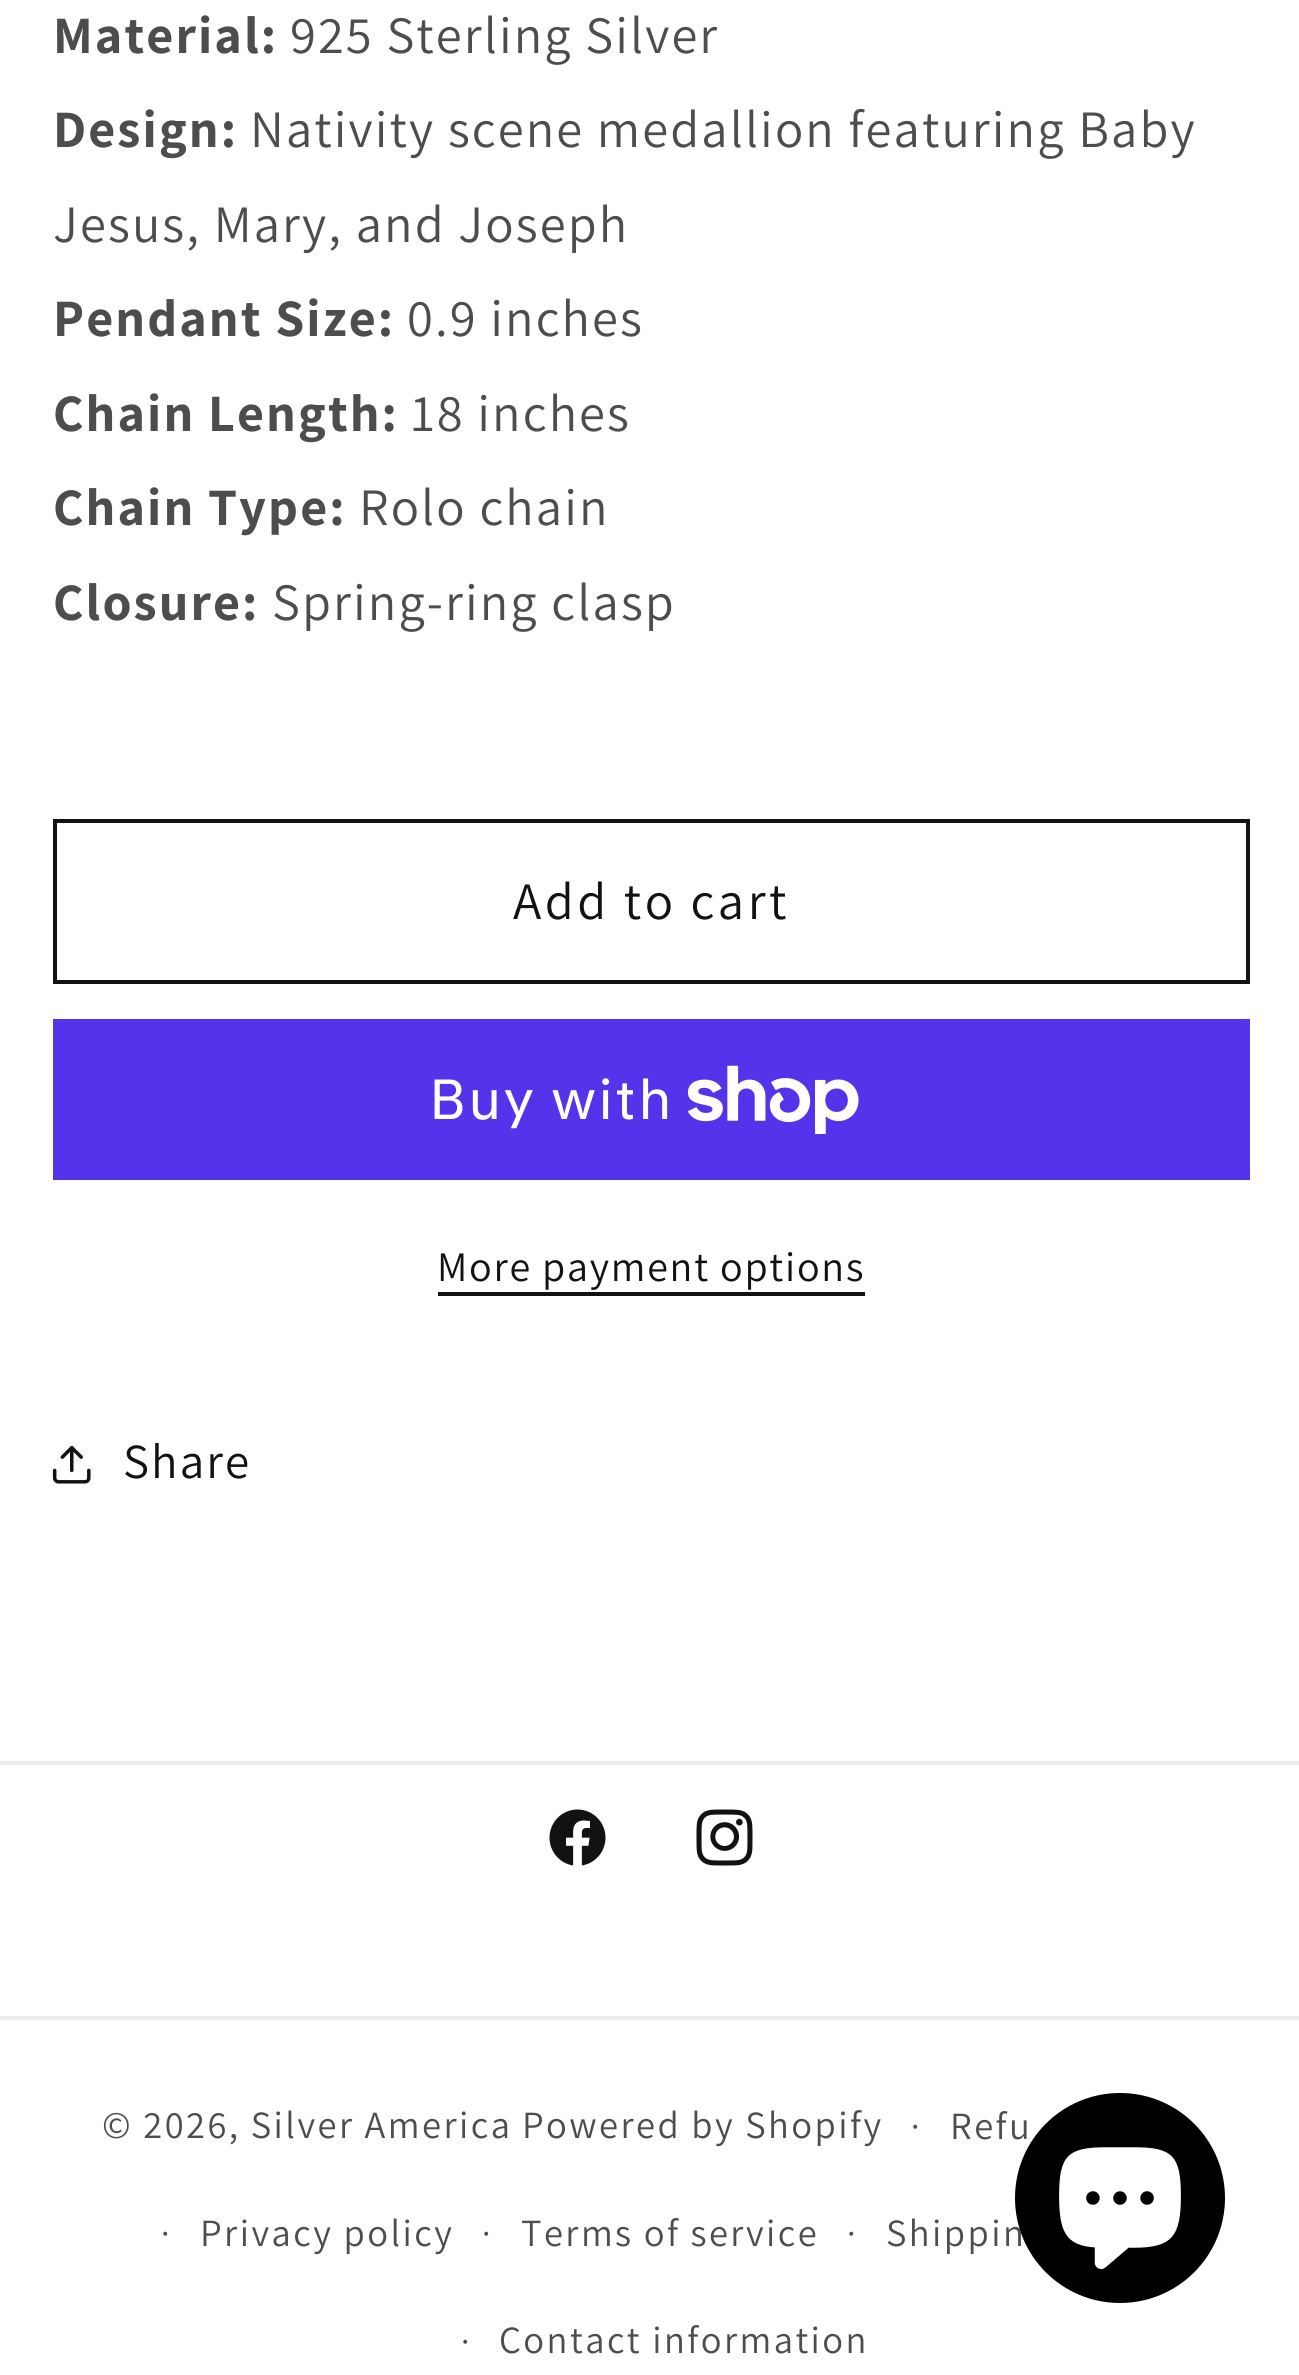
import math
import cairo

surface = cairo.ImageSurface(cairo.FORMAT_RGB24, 1299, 2375)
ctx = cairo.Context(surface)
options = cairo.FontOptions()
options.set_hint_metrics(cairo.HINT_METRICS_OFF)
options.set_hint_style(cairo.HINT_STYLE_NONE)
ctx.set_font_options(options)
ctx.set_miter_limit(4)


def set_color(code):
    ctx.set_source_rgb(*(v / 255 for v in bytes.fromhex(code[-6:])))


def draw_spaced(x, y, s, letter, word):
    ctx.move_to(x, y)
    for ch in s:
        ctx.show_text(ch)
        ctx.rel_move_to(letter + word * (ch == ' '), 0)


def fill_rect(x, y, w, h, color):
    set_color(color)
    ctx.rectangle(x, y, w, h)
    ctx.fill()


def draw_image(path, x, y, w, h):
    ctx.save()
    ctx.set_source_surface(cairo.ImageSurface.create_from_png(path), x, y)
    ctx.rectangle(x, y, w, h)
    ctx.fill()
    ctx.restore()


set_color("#ffffff")
ctx.paint()
ctx.select_font_face("Assistant", cairo.FONT_SLANT_NORMAL, cairo.FONT_WEIGHT_BOLD)
ctx.set_font_size(52.5)
set_color("#4d4d4d")
draw_spaced(53, 53, "Material:", 2.1, 0)
ctx.select_font_face("Assistant")
draw_spaced(290, 53, "925 Sterling Silver", 2.1, 0)
ctx.select_font_face("Assistant", cairo.FONT_SLANT_NORMAL, cairo.FONT_WEIGHT_BOLD)
draw_spaced(53, 147, "Design:", 2.1, 0)
ctx.select_font_face("Assistant")
draw_spaced(250, 147, "Nativity scene medallion featuring Baby", 2.1, 0)
draw_spaced(53, 242, "Jesus, Mary, and Joseph", 2.1, 0)
ctx.select_font_face("Assistant", cairo.FONT_SLANT_NORMAL, cairo.FONT_WEIGHT_BOLD)
draw_spaced(53, 336, "Pendant Size:", 2.1, 0)
ctx.select_font_face("Assistant")
draw_spaced(407, 336, "0.9 inches", 2.1, 0)
ctx.select_font_face("Assistant", cairo.FONT_SLANT_NORMAL, cairo.FONT_WEIGHT_BOLD)
draw_spaced(53, 431, "Chain Length:", 2.1, 0)
ctx.select_font_face("Assistant")
draw_spaced(411, 431, "18 inches", 2.1, 0)
ctx.select_font_face("Assistant", cairo.FONT_SLANT_NORMAL, cairo.FONT_WEIGHT_BOLD)
draw_spaced(53, 525, "Chain Type:", 2.1, 0)
ctx.select_font_face("Assistant")
draw_spaced(359, 525, "Rolo chain", 2.1, 0)
ctx.select_font_face("Assistant", cairo.FONT_SLANT_NORMAL, cairo.FONT_WEIGHT_BOLD)
draw_spaced(53, 620, "Closure:", 2.1, 0)
ctx.select_font_face("Assistant")
draw_spaced(272, 620, "Spring-ring clasp", 2.1, 0)
ctx.rectangle(55, 821, 1193, 161)
set_color("#121212")
ctx.set_line_width(4)
ctx.stroke()
draw_spaced(513, 919, "Add to cart", 3.5, 0)
fill_rect(53, 1019, 1197, 161, "#5433eb")
ctx.select_font_face("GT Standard")
ctx.set_font_size(56)
set_color("#ffffff")
draw_spaced(429, 1119, "Buy with", 2.1, 0)
draw_image("assets/img1.png", 687, 1065, 172, 69)
ctx.select_font_face("Assistant")
ctx.set_font_size(42)
set_color("#121212")
draw_spaced(437, 1281, "More payment options", 1.75, 0)
fill_rect(438, 1292, 427, 4, "#121212")
draw_image("assets/img2.png", 52, 1445, 39, 39)
ctx.set_font_size(49)
draw_spaced(123, 1478, "Share", 2.1, 0)
fill_rect(0, 1761, 1299, 4, "#ececec")
draw_image("assets/img3.png", 549, 1809, 57, 57)
draw_image("assets/img4.png", 696, 1809, 57, 57)
fill_rect(0, 2016, 1299, 4, "#ececec")
ctx.set_font_size(38.5)
set_color("#4d4d4d")
draw_spaced(102, 2138, "© 2026, Silver America", 2.45, 0)
draw_spaced(522, 2138, "Powered by Shopify", 2.45, 0)
ctx.set_font_size(35)
draw_spaced(911, 2138, "·", 2.45, 0)
ctx.set_font_size(38.5)
draw_spaced(950, 2139, "Refu", 2.45, 0)
ctx.set_font_size(35)
draw_spaced(161, 2245, "·", 2.45, 0)
ctx.set_font_size(38.5)
draw_spaced(200, 2246, "Privacy policy", 2.45, 0)
ctx.set_font_size(35)
draw_spaced(482, 2245, "·", 2.45, 0)
ctx.set_font_size(38.5)
draw_spaced(521, 2246, "Terms of service", 2.45, 0)
ctx.set_font_size(35)
draw_spaced(847, 2245, "·", 2.45, 0)
ctx.set_font_size(38.5)
draw_spaced(886, 2246, "Shippin", 2.45, 0)
ctx.set_font_size(35)
draw_spaced(461, 2353, "·", 2.45, 0)
ctx.set_font_size(38.5)
draw_spaced(499, 2353, "Contact information", 2.45, 0)
set_color("#000000")
ctx.new_path()
ctx.arc(1120, 2198, 105, 0, 2 * math.pi)
ctx.fill()
draw_image("assets/img5.png", 1059, 2147, 122, 122)
surface.write_to_png("output.png")
